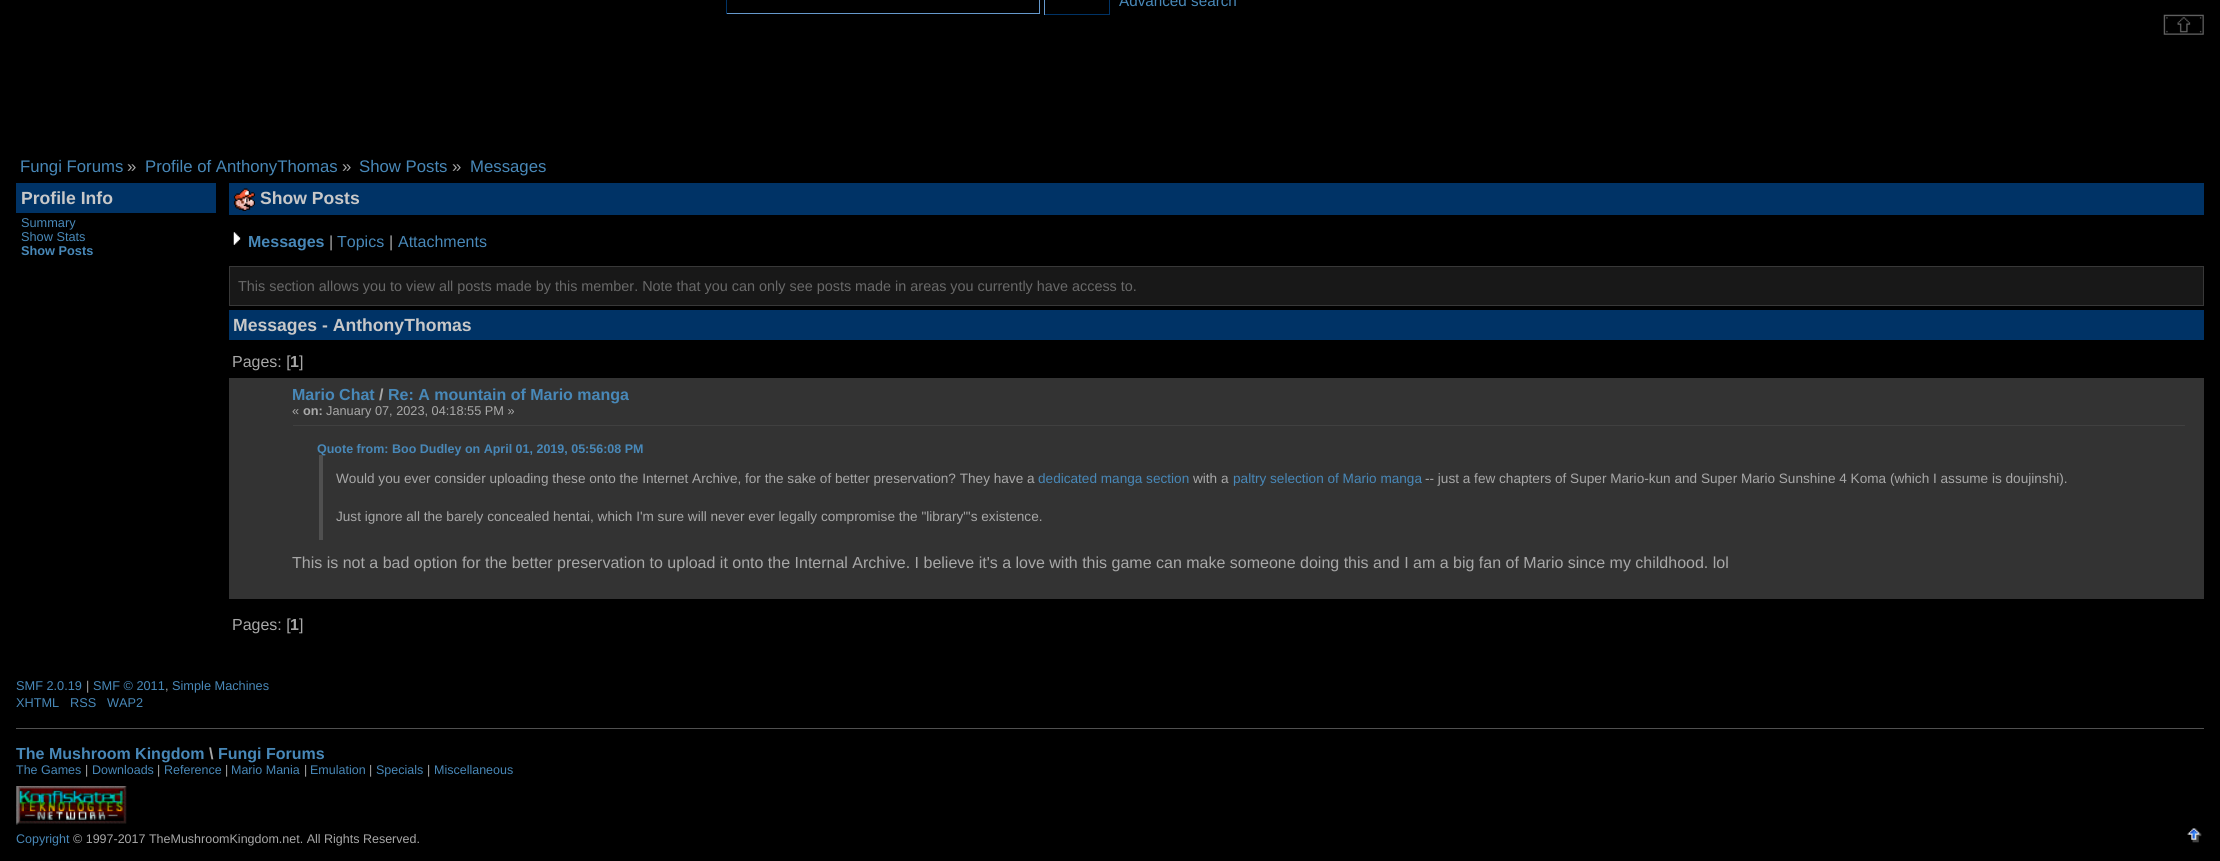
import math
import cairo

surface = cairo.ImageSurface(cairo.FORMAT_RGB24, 2220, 861)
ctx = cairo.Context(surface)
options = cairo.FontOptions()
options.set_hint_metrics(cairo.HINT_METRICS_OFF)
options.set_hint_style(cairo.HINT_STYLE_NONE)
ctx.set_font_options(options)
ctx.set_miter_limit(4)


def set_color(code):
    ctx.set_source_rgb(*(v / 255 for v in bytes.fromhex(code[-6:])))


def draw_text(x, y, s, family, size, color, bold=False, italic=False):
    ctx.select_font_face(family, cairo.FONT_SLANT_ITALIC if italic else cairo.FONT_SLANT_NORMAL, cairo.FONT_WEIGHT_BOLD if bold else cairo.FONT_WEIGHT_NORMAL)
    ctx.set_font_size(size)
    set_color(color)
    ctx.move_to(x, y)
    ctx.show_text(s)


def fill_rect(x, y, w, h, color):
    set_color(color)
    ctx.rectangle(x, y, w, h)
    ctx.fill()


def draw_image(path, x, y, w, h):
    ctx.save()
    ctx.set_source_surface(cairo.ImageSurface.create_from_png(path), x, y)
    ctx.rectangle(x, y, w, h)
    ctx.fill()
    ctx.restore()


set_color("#000000")
ctx.paint()
fill_rect(1039, 0, 1, 14, "#6699cc")
fill_rect(726, 13, 314, 1, "#6699cc")
fill_rect(726, 0, 1, 14, "#003366")
fill_rect(1109, 0, 1, 15, "#003366")
fill_rect(1044, 14, 66, 1, "#003366")
fill_rect(1044, 0, 1, 15, "#6699cc")
draw_text(1119, 6, "Advanced search", "Liberation Sans", 15.25, "#4888b8")
draw_image("assets/img1.png", 2163, 14, 41, 21)
draw_text(20, 172, "Fungi Forums", "Liberation Sans", 16.75, "#4888b8")
draw_text(127, 172, "»", "Liberation Sans", 16.75, "#a8a8a8")
draw_text(145, 172, "Profile of AnthonyThomas", "Liberation Sans", 16.75, "#4888b8")
draw_text(342, 172, "»", "Liberation Sans", 16.75, "#a8a8a8")
draw_text(359, 172, "Show Posts", "Liberation Sans", 16.75, "#4888b8")
draw_text(452, 172, "»", "Liberation Sans", 16.75, "#a8a8a8")
draw_text(470, 172, "Messages", "Liberation Sans", 16.75, "#4888b8")
fill_rect(16, 183, 200, 30, "#003366")
draw_text(21, 204, "Profile Info", "Liberation Sans", 17.6, "#c8c8c8", bold=True)
draw_text(21, 227, "Summary", "Liberation Sans", 12.75, "#4888b8")
draw_text(21, 241, "Show Stats", "Liberation Sans", 12.75, "#4888b8")
draw_text(21, 255, "Show Posts", "Liberation Sans", 12.75, "#4888b8", bold=True)
fill_rect(229, 183, 1975, 32, "#003366")
draw_image("assets/img2.png", 233, 188, 22, 23)
draw_text(260, 204, "Show Posts", "Liberation Sans", 17.6, "#c8c8c8", bold=True)
draw_image("assets/img3.png", 233, 232, 8, 13)
draw_text(248, 247, "Messages", "Liberation Sans", 16, "#4888b8", bold=True)
draw_text(329, 247, "|", "Liberation Sans", 16, "#a8a8a8")
draw_text(337, 247, "Topics", "Liberation Sans", 16, "#4888b8")
draw_text(389, 247, "|", "Liberation Sans", 16, "#a8a8a8")
draw_text(398, 247, "Attachments", "Liberation Sans", 16, "#4888b8")
set_color("#181818")
ctx.rectangle(229.5, 266.5, 1974, 39)
ctx.fill_preserve()
set_color("#383838")
ctx.set_line_width(1)
ctx.stroke()
draw_text(238, 291, "This section allows you to view all posts made by this member. Note that you can only see posts made in areas you currently have access to.", "Liberation Sans", 14.4, "#686868")
fill_rect(229, 310, 1975, 30, "#003366")
draw_text(233, 331, "Messages - AnthonyThomas", "Liberation Sans", 17.6, "#c8c8c8", bold=True)
draw_text(232, 367, "Pages: [", "Liberation Sans", 16, "#a8a8a8")
draw_text(290, 367, "1", "Liberation Sans", 16, "#a8a8a8", bold=True)
draw_text(299, 367, "]", "Liberation Sans", 16, "#a8a8a8")
fill_rect(229, 378, 1975, 221, "#333333")
draw_text(292, 400, "Mario Chat", "Liberation Sans", 16, "#4888b8", bold=True)
draw_text(379, 400, "/", "Liberation Sans", 16, "#a8a8a8", bold=True)
draw_text(388, 400, "Re: A mountain of Mario manga", "Liberation Sans", 16, "#4888b8", bold=True)
draw_text(292, 415, "«", "Liberation Sans", 12.75, "#a8a8a8")
draw_text(303, 415, "on:", "Liberation Sans", 12.75, "#a8a8a8", bold=True)
draw_text(326, 415, "January 07, 2023, 04:18:55 PM »", "Liberation Sans", 12.75, "#a8a8a8")
fill_rect(293, 425, 1892, 1, "#404040")
draw_text(317, 453, "Quote from: Boo Dudley on April 01, 2019, 05:56:08 PM", "Liberation Sans", 12.5, "#4888b8", bold=True)
fill_rect(319, 455, 4, 85, "#505050")
draw_text(336, 483, "Would you ever consider uploading these onto the Internet Archive, for the sake of better preservation? They have a", "Liberation Sans", 13.6, "#a8a8a8")
draw_text(1038, 483, "dedicated manga section", "Liberation Sans", 13.6, "#4888b8")
draw_text(1193, 483, "with a", "Liberation Sans", 13.6, "#a8a8a8")
draw_text(1233, 483, "paltry selection of Mario manga", "Liberation Sans", 13.6, "#4888b8")
draw_text(1425, 483, "-- just a few chapters of Super Mario-kun and Super Mario Sunshine 4 Koma (which I assume is doujinshi).", "Liberation Sans", 13.6, "#a8a8a8")
draw_text(336, 521, "Just ignore all the barely concealed hentai, which I'm sure will never ever legally compromise the \"library\"'s existence.", "Liberation Sans", 13.6, "#a8a8a8")
draw_text(292, 568, "This is not a bad option for the better preservation to upload it onto the Internal Archive. I believe it's a love with this game can make someone doing this and I am a big fan of Mario since my childhood. lol", "Liberation Sans", 16, "#a8a8a8")
draw_text(232, 630, "Pages: [", "Liberation Sans", 16, "#a8a8a8")
draw_text(290, 630, "1", "Liberation Sans", 16, "#a8a8a8", bold=True)
draw_text(299, 630, "]", "Liberation Sans", 16, "#a8a8a8")
draw_text(16, 690, "SMF 2.0.19", "Liberation Sans", 12.75, "#4888b8")
draw_text(86, 690, "|", "Liberation Sans", 12.75, "#a8a8a8")
draw_text(93, 690, "SMF © 2011", "Liberation Sans", 12.75, "#4888b8")
draw_text(165, 690, ",", "Liberation Sans", 12.75, "#a8a8a8")
draw_text(172, 690, "Simple Machines", "Liberation Sans", 12.75, "#4888b8")
draw_text(16, 707, "XHTML", "Liberation Sans", 12.75, "#4888b8")
draw_text(70, 707, "RSS", "Liberation Sans", 12.75, "#4888b8")
draw_text(107, 707, "WAP2", "Liberation Sans", 12.75, "#4888b8")
fill_rect(16, 728, 2188, 1, "#505050")
draw_text(16, 759, "The Mushroom Kingdom", "Liberation Sans", 16, "#4888b8", bold=True)
draw_text(209, 759, "\\", "Liberation Sans", 16, "#a8a8a8", bold=True)
draw_text(218, 759, "Fungi Forums", "Liberation Sans", 16, "#4888b8", bold=True)
draw_text(16, 774, "The Games", "Liberation Sans", 12.5, "#4888b8")
draw_text(85, 774, "|", "Liberation Sans", 12.5, "#a8a8a8")
draw_text(92, 774, "Downloads", "Liberation Sans", 12.5, "#4888b8")
draw_text(157, 774, "|", "Liberation Sans", 12.5, "#a8a8a8")
draw_text(164, 774, "Reference", "Liberation Sans", 12.5, "#4888b8")
draw_text(225, 774, "|", "Liberation Sans", 12.5, "#a8a8a8")
draw_text(231, 774, "Mario Mania", "Liberation Sans", 12.5, "#4888b8")
draw_text(304, 774, "|", "Liberation Sans", 12.5, "#a8a8a8")
draw_text(310, 774, "Emulation", "Liberation Sans", 12.5, "#4888b8")
draw_text(369, 774, "|", "Liberation Sans", 12.5, "#a8a8a8")
draw_text(376, 774, "Specials", "Liberation Sans", 12.5, "#4888b8")
draw_text(427, 774, "|", "Liberation Sans", 12.5, "#a8a8a8")
draw_text(434, 774, "Miscellaneous", "Liberation Sans", 12.5, "#4888b8")
draw_image("assets/img4.png", 16, 786, 111, 39)
draw_text(16, 843, "Copyright", "Liberation Sans", 12.5, "#4888b8")
draw_text(73, 843, "© 1997-2017 TheMushroomKingdom.net. All Rights Reserved.", "Liberation Sans", 12.5, "#a8a8a8")
draw_image("assets/img5.png", 2187, 828, 15, 15)
surface.write_to_png("output.png")
